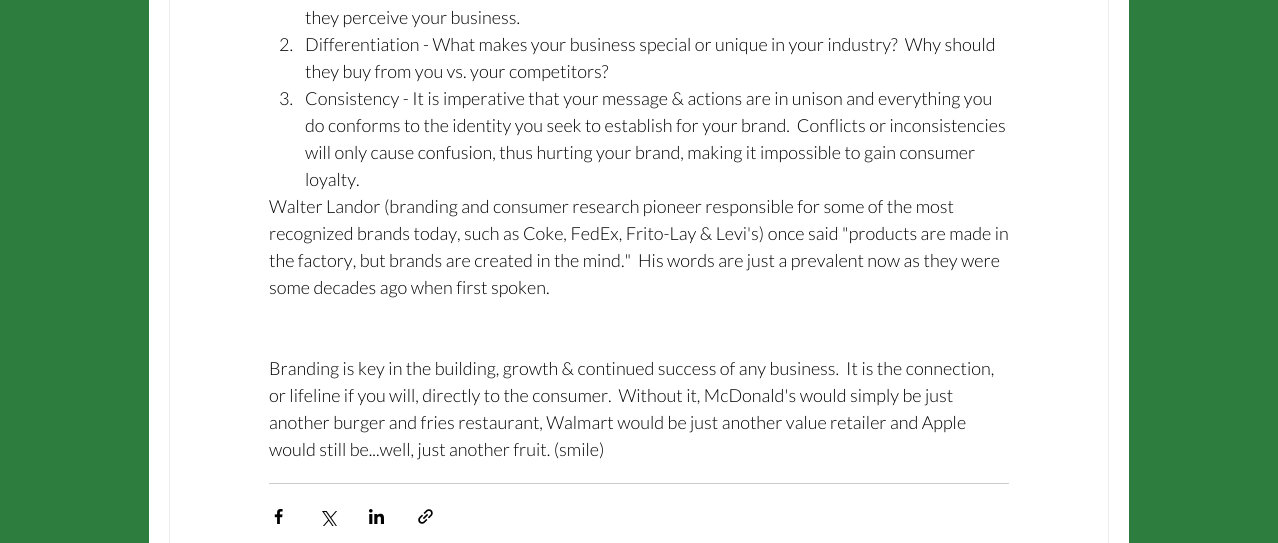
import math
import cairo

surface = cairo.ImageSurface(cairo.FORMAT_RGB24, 1278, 543)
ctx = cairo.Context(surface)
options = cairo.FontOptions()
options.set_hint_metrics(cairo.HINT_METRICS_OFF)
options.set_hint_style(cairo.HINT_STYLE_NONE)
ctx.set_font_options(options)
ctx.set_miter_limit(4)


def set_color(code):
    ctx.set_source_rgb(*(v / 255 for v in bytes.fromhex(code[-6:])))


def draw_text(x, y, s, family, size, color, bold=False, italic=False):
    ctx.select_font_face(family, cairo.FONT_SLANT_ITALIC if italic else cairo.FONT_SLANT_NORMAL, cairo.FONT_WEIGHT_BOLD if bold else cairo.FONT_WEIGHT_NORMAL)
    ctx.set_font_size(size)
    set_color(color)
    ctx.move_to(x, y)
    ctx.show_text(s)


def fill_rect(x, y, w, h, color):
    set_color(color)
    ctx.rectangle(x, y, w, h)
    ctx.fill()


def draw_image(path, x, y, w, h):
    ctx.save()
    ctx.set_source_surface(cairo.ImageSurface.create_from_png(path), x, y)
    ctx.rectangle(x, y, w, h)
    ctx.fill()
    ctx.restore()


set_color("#2d7e3e")
ctx.paint()
fill_rect(149, 0, 980, 543, "#ffffff")
ctx.rectangle(169.5, -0.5, 939, 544)
set_color("#eeecec")
ctx.set_line_width(1)
ctx.stroke()
draw_text(305, 24, "they perceive your business.", "Lato Light", 18, "#000000")
draw_text(279, 51, "2.", "Lato Light", 18, "#000000")
draw_text(305, 51, "Differentiation - What makes your business special or unique in your industry?  Why should", "Lato Light", 18, "#000000")
draw_text(305, 78, "they buy from you vs. your competitors?", "Lato Light", 18, "#000000")
draw_text(279, 105, "3.", "Lato Light", 18, "#000000")
draw_text(305, 105, "Consistency - It is imperative that your message & actions are in unison and everything you", "Lato Light", 18, "#000000")
draw_text(305, 132, "do conforms to the identity you seek to establish for your brand.  Conflicts or inconsistencies", "Lato Light", 18, "#000000")
draw_text(305, 159, "will only cause confusion, thus hurting your brand, making it impossible to gain consumer", "Lato Light", 18, "#000000")
draw_text(305, 186, "loyalty.", "Lato Light", 18, "#000000")
draw_text(269, 213, "Walter Landor (branding and consumer research pioneer responsible for some of the most", "Lato Light", 18, "#000000")
draw_text(269, 240, "recognized brands today, such as Coke, FedEx, Frito-Lay & Levi's) once said \"products are made in", "Lato Light", 18, "#000000")
draw_text(269, 267, "the factory, but brands are created in the mind.\"  His words are just a prevalent now as they were", "Lato Light", 18, "#000000")
draw_text(269, 294, "some decades ago when first spoken.", "Lato Light", 18, "#000000")
draw_text(269, 375, "Branding is key in the building, growth & continued success of any business.  It is the connection,", "Lato Light", 18, "#000000")
draw_text(269, 402, "or lifeline if you will, directly to the consumer.  Without it, McDonald's would simply be just", "Lato Light", 18, "#000000")
draw_text(269, 429, "another burger and fries restaurant, Walmart would be just another value retailer and Apple", "Lato Light", 18, "#000000")
draw_text(269, 456, "would still be...well, just another fruit. (smile)", "Lato Light", 18, "#000000")
fill_rect(269, 483, 740, 1, "#cccccc")
draw_image("assets/img1.png", 274, 509, 9, 15)
draw_image("assets/img2.png", 322, 511, 15, 15)
draw_image("assets/img3.png", 369, 509, 15, 15)
draw_image("assets/img4.png", 418, 509, 15, 15)
surface.write_to_png("output.png")
